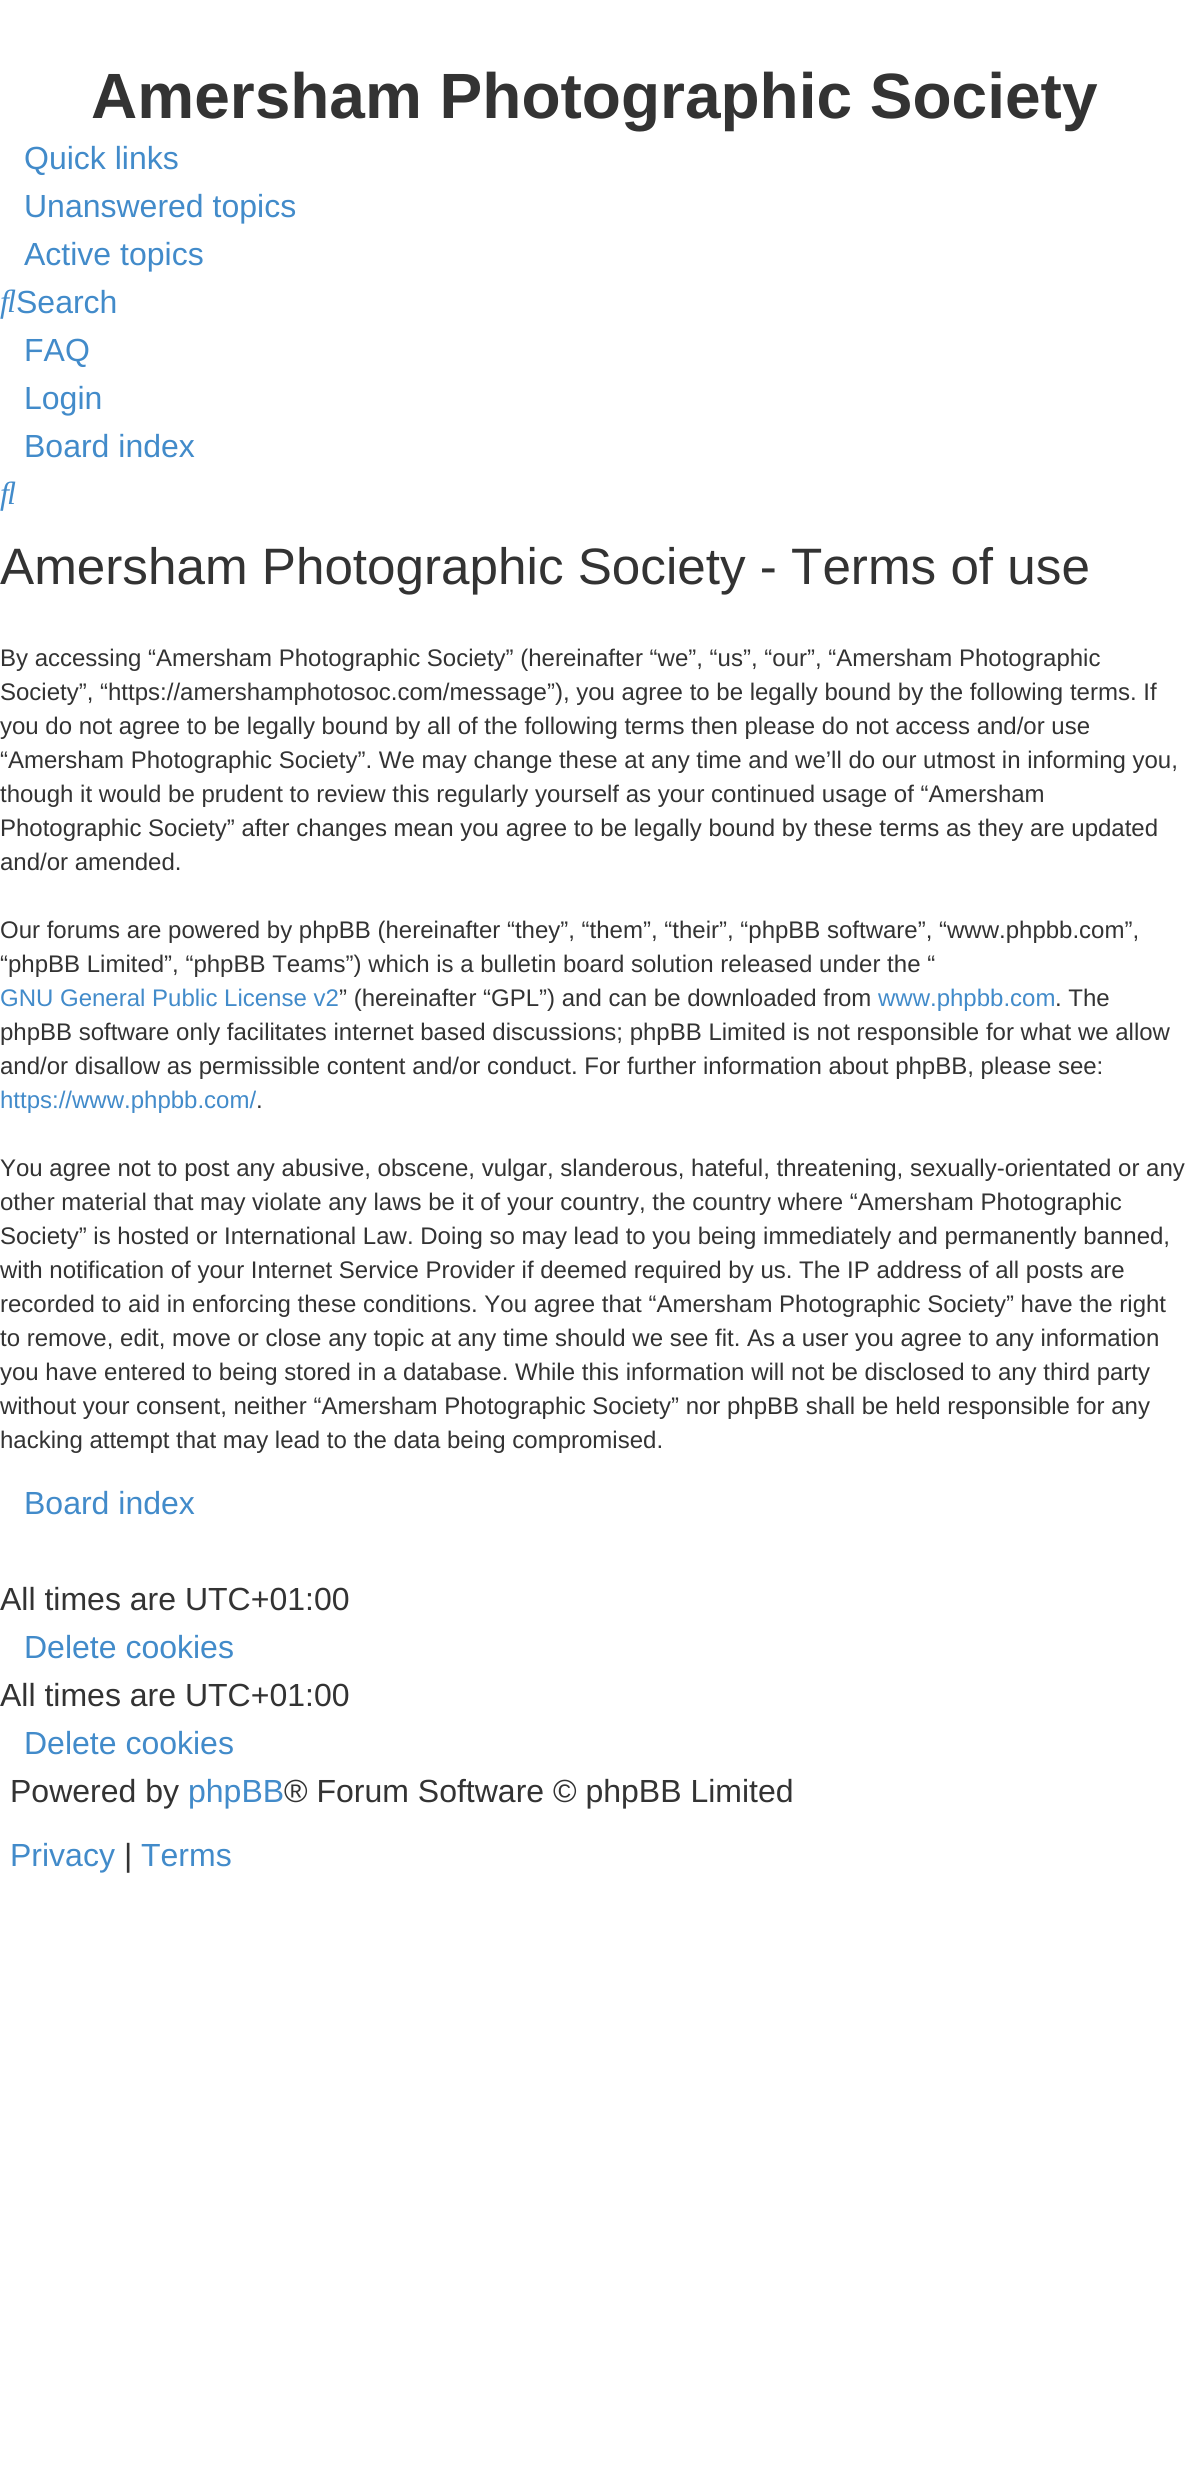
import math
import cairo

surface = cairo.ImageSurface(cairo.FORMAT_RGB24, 1188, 2470)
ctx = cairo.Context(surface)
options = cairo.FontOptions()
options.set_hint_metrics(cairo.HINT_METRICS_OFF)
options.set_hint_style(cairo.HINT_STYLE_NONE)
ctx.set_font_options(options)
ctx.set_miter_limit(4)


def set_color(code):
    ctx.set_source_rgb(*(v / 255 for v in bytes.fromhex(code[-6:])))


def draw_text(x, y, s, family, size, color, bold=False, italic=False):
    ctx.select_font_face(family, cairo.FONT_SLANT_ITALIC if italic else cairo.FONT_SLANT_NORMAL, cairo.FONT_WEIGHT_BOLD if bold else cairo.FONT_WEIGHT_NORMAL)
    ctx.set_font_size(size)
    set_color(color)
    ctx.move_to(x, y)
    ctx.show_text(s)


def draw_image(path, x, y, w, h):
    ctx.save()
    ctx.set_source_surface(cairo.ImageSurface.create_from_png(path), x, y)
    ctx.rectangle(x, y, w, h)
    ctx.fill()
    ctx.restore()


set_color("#ffffff")
ctx.paint()
draw_text(91, 118, "Amersham Photographic Society", "Liberation Sans", 64, "#333333", bold=True)
draw_text(24, 169, "Quick links", "Liberation Sans", 32, "#428bca")
draw_text(24, 217, "Unanswered topics", "Liberation Sans", 32, "#428bca")
draw_text(24, 265, "Active topics", "Liberation Sans", 32, "#428bca")
draw_image("assets/img1.png", 0, 289, 16, 30)
draw_text(16, 313, "Search", "Liberation Sans", 32, "#428bca")
draw_text(24, 361, "FAQ", "Liberation Sans", 32, "#428bca")
draw_text(24, 409, "Login", "Liberation Sans", 32, "#428bca")
draw_text(24, 457, "Board index", "Liberation Sans", 32, "#428bca")
draw_image("assets/img1.png", 0, 481, 16, 30)
draw_text(0, 584, "Amersham Photographic Society - Terms of use", "Liberation Sans", 51.2, "#333333")
draw_text(0, 666, "By accessing “Amersham Photographic Society” (hereinafter “we”, “us”, “our”, “Amersham Photographic", "Liberation Sans", 24, "#333333")
draw_text(0, 700, "Society”, “https://amershamphotosoc.com/message”), you agree to be legally bound by the following terms. If", "Liberation Sans", 24, "#333333")
draw_text(0, 734, "you do not agree to be legally bound by all of the following terms then please do not access and/or use", "Liberation Sans", 24, "#333333")
draw_text(0, 768, "“Amersham Photographic Society”. We may change these at any time and we’ll do our utmost in informing you,", "Liberation Sans", 24, "#333333")
draw_text(0, 802, "though it would be prudent to review this regularly yourself as your continued usage of “Amersham", "Liberation Sans", 24, "#333333")
draw_text(0, 836, "Photographic Society” after changes mean you agree to be legally bound by these terms as they are updated", "Liberation Sans", 24, "#333333")
draw_text(0, 870, "and/or amended.", "Liberation Sans", 24, "#333333")
draw_text(0, 938, "Our forums are powered by phpBB (hereinafter “they”, “them”, “their”, “phpBB software”, “www.phpbb.com”,", "Liberation Sans", 24, "#333333")
draw_text(0, 972, "“phpBB Limited”, “phpBB Teams”) which is a bulletin board solution released under the “", "Liberation Sans", 24, "#333333")
draw_text(0, 1006, "GNU General Public License v2", "Liberation Sans", 24, "#428bca")
draw_text(339, 1006, "” (hereinafter “GPL”) and can be downloaded from", "Liberation Sans", 24, "#333333")
draw_text(878, 1006, "www.phpbb.com", "Liberation Sans", 24, "#428bca")
draw_text(1055, 1006, ". The", "Liberation Sans", 24, "#333333")
draw_text(0, 1040, "phpBB software only facilitates internet based discussions; phpBB Limited is not responsible for what we allow", "Liberation Sans", 24, "#333333")
draw_text(0, 1074, "and/or disallow as permissible content and/or conduct. For further information about phpBB, please see:", "Liberation Sans", 24, "#333333")
draw_text(0, 1108, "https://www.phpbb.com/", "Liberation Sans", 24, "#428bca")
draw_text(256, 1108, ".", "Liberation Sans", 24, "#333333")
draw_text(0, 1176, "You agree not to post any abusive, obscene, vulgar, slanderous, hateful, threatening, sexually-orientated or any", "Liberation Sans", 24, "#333333")
draw_text(0, 1210, "other material that may violate any laws be it of your country, the country where “Amersham Photographic", "Liberation Sans", 24, "#333333")
draw_text(0, 1244, "Society” is hosted or International Law. Doing so may lead to you being immediately and permanently banned,", "Liberation Sans", 24, "#333333")
draw_text(0, 1278, "with notification of your Internet Service Provider if deemed required by us. The IP address of all posts are", "Liberation Sans", 24, "#333333")
draw_text(0, 1312, "recorded to aid in enforcing these conditions. You agree that “Amersham Photographic Society” have the right", "Liberation Sans", 24, "#333333")
draw_text(0, 1346, "to remove, edit, move or close any topic at any time should we see fit. As a user you agree to any information", "Liberation Sans", 24, "#333333")
draw_text(0, 1380, "you have entered to being stored in a database. While this information will not be disclosed to any third party", "Liberation Sans", 24, "#333333")
draw_text(0, 1414, "without your consent, neither “Amersham Photographic Society” nor phpBB shall be held responsible for any", "Liberation Sans", 24, "#333333")
draw_text(0, 1448, "hacking attempt that may lead to the data being compromised.", "Liberation Sans", 24, "#333333")
draw_text(24, 1514, "Board index", "Liberation Sans", 32, "#428bca")
draw_text(0, 1610, "All times are UTC+01:00", "Liberation Sans", 32, "#333333")
draw_text(24, 1658, "Delete cookies", "Liberation Sans", 32, "#428bca")
draw_text(0, 1706, "All times are UTC+01:00", "Liberation Sans", 32, "#333333")
draw_text(24, 1754, "Delete cookies", "Liberation Sans", 32, "#428bca")
draw_text(10, 1802, "Powered by", "Liberation Sans", 32, "#333333")
draw_text(188, 1802, "phpBB", "Liberation Sans", 32, "#428bca")
draw_text(284, 1802, "® Forum Software © phpBB Limited", "Liberation Sans", 32, "#333333")
draw_text(10, 1866, "Privacy", "Liberation Sans", 32, "#428bca")
draw_text(124, 1866, "|", "Liberation Sans", 32, "#333333")
draw_text(141, 1866, "Terms", "Liberation Sans", 32, "#428bca")
surface.write_to_png("output.png")
